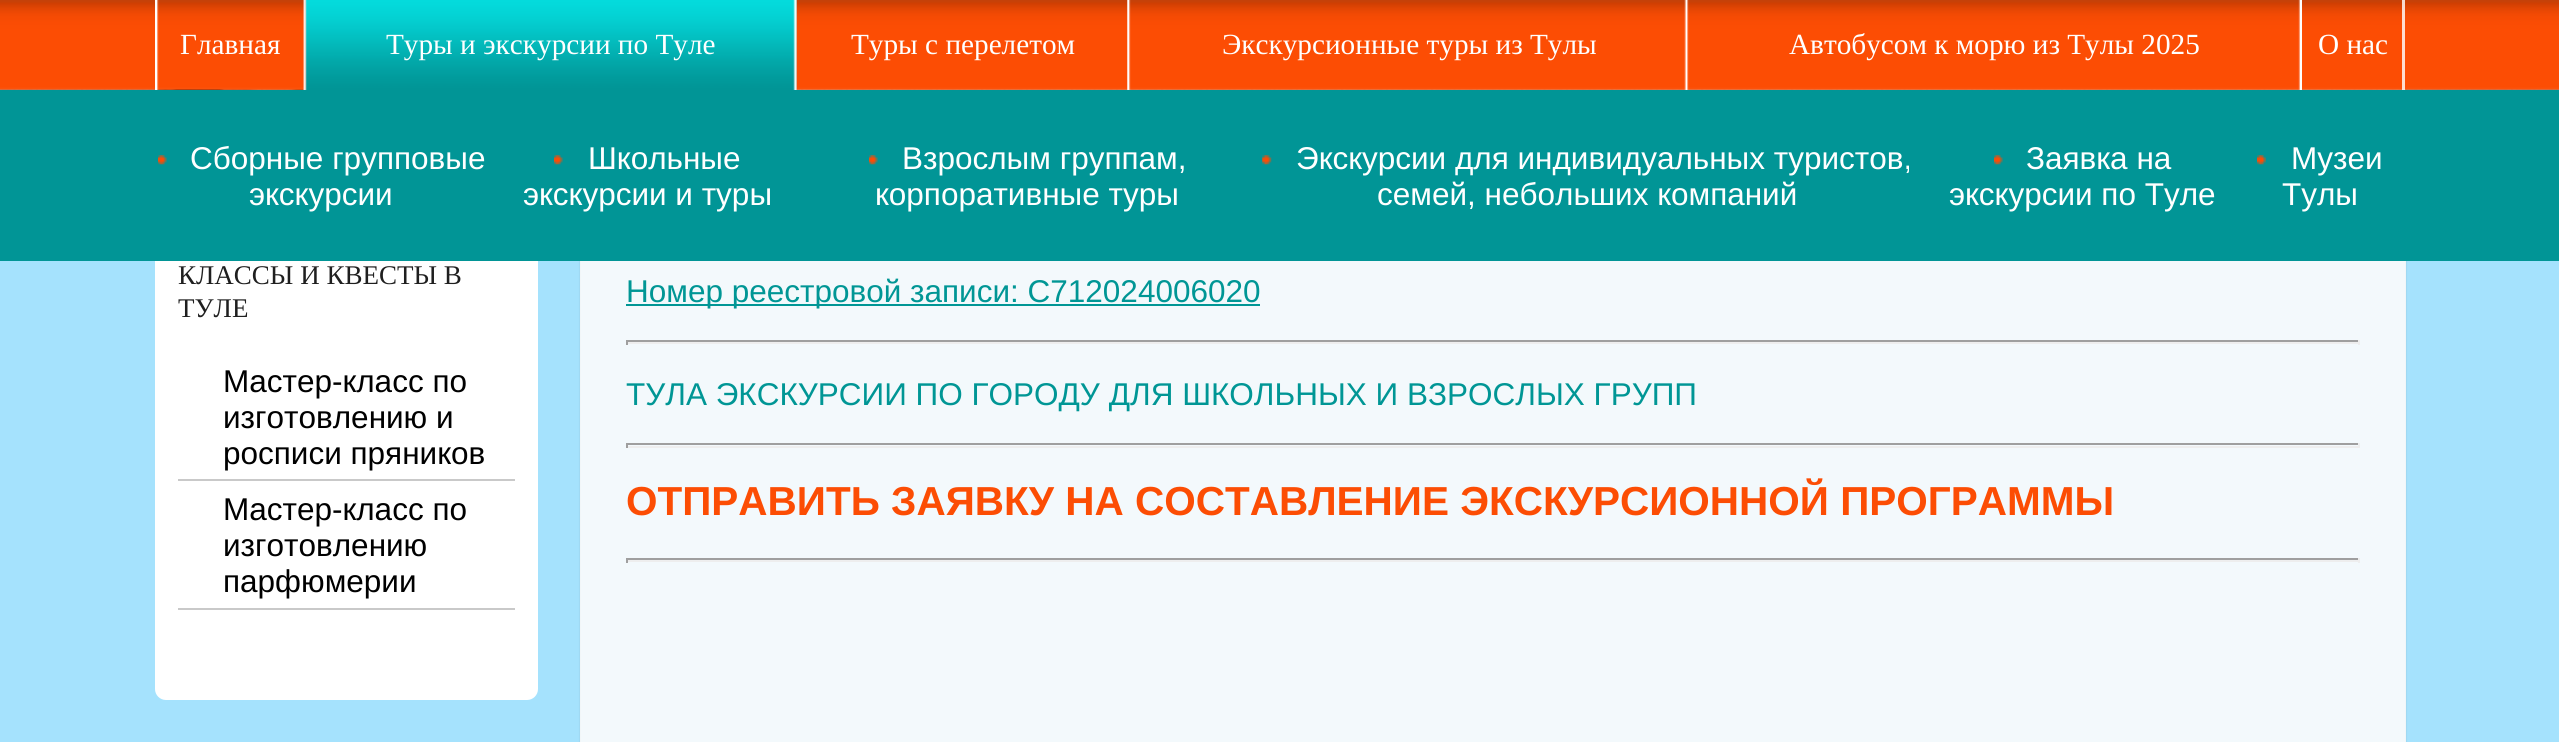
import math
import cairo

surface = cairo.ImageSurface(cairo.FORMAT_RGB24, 2559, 742)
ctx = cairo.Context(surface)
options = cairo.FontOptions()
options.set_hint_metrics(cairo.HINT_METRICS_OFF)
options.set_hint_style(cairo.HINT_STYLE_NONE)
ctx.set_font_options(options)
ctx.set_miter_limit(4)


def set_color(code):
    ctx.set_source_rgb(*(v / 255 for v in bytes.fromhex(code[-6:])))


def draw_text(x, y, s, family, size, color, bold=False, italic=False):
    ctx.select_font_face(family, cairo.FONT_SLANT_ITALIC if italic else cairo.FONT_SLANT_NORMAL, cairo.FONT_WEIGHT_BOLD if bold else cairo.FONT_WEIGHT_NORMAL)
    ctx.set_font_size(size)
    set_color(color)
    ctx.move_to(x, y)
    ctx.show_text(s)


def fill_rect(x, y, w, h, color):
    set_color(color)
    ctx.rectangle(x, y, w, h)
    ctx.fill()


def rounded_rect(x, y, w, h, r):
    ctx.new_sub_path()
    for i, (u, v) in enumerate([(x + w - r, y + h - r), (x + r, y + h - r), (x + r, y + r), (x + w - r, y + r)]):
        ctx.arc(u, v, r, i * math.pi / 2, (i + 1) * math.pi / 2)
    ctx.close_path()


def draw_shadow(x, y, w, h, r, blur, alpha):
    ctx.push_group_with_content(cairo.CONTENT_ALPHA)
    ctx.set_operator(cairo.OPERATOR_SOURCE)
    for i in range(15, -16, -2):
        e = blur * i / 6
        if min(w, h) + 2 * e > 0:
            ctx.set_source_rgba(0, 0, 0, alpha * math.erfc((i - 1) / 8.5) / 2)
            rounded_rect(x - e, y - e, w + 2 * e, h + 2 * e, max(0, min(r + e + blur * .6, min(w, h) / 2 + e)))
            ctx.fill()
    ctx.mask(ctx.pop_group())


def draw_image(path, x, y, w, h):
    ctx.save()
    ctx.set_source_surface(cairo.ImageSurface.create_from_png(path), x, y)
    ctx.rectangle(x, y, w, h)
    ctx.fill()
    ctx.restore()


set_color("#a5e2fd")
ctx.paint()
set_color("#ffffff")
rounded_rect(155, -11, 383, 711, 11)
ctx.fill()
draw_image("assets/img10.png", 157, 89, 150, 1)
ctx.save()
ctx.set_fill_rule(cairo.FILL_RULE_EVEN_ODD)
ctx.new_path()
ctx.move_to(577, 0)
ctx.line_to(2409, 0)
ctx.line_to(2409, 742)
ctx.line_to(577, 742)
ctx.close_path()
ctx.move_to(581, -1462)
ctx.line_to(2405, -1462)
ctx.line_to(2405, 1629)
ctx.line_to(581, 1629)
ctx.close_path()
ctx.clip()
set_color("#323232")
draw_shadow(581, -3, 1824, 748, 0, 1, 0.61)
ctx.restore()
ctx.set_source_rgba(0.988, 0.988, 0.988, 0.9)
ctx.rectangle(580, 89, 1826, 653)
ctx.fill()
draw_image("assets/img1.png", 0, 0, 2559, 90)
draw_image("assets/img2.png", 155, 0, 152, 90)
draw_text(180, 54, "Главная", "Liberation Serif", 29.25, "#ffffff")
draw_image("assets/img3.png", 305, 0, 492, 90)
draw_text(386, 54, "Туры и экскурсии по Туле", "Liberation Serif", 29.25, "#ffffff")
draw_image("assets/img4.png", 1127, 0, 4, 90)
draw_text(851, 54, "Туры с перелетом", "Liberation Serif", 29.25, "#ffffff")
draw_image("assets/img5.png", 1684, 0, 5, 90)
draw_text(1222, 54, "Экскурсионные туры из Тулы", "Liberation Serif", 29.25, "#ffffff")
draw_image("assets/img6.png", 2298, 0, 4, 90)
draw_text(1789, 54, "Автобусом к морю из Тулы 2025", "Liberation Serif", 29.25, "#ffffff")
ctx.set_source_rgba(1, 1, 1, 0.81)
ctx.rectangle(2402, 0, 3, 90)
ctx.fill()
draw_text(2318, 54, "О нас", "Liberation Serif", 29.25, "#ffffff")
fill_rect(0, 90, 2559, 171, "#019596")
draw_image("assets/img7.png", 158, 155, 9, 10)
draw_text(190, 169, "Сборные групповые", "Liberation Sans", 31.5, "#ffffff")
draw_text(249, 205, "экскурсии", "Liberation Sans", 31.5, "#ffffff")
draw_image("assets/img7.png", 554, 155, 9, 10)
draw_text(588, 169, "Школьные", "Liberation Sans", 31.5, "#ffffff")
draw_text(523, 205, "экскурсии и туры", "Liberation Sans", 31.5, "#ffffff")
draw_image("assets/img7.png", 869, 155, 9, 10)
draw_text(902, 169, "Взрослым группам,", "Liberation Sans", 31.5, "#ffffff")
draw_text(875, 205, "корпоративные туры", "Liberation Sans", 31.5, "#ffffff")
draw_image("assets/img8.png", 1262, 155, 10, 10)
draw_text(1296, 169, "Экскурсии для индивидуальных туристов,", "Liberation Sans", 31.5, "#ffffff")
draw_text(1377, 205, "семей, небольших компаний", "Liberation Sans", 31.5, "#ffffff")
draw_image("assets/img7.png", 1994, 155, 9, 10)
draw_text(2026, 169, "Заявка на", "Liberation Sans", 31.5, "#ffffff")
draw_text(1949, 205, "экскурсии по Туле", "Liberation Sans", 31.5, "#ffffff")
draw_image("assets/img9.png", 2257, 155, 9, 10)
draw_text(2291, 169, "Музеи", "Liberation Sans", 31.5, "#ffffff")
draw_text(2282, 205, "Тулы", "Liberation Sans", 31.5, "#ffffff")
draw_text(178, 284, "КЛАССЫ И КВЕСТЫ В", "Liberation Serif", 27, "#1f1f1f")
draw_text(178, 317, "ТУЛЕ", "Liberation Serif", 27, "#1f1f1f")
fill_rect(178, 479, 337, 2, "#c9c9c9")
draw_text(223, 392, "Мастер-класс по", "Liberation Sans", 31.5, "#000000")
draw_text(223, 428, "изготовлению и", "Liberation Sans", 31.5, "#000000")
draw_text(223, 464, "росписи пряников", "Liberation Sans", 31.5, "#000000")
fill_rect(178, 608, 337, 2, "#c9c9c9")
draw_text(223, 520, "Мастер-класс по", "Liberation Sans", 31.5, "#000000")
draw_text(223, 556, "изготовлению", "Liberation Sans", 31.5, "#000000")
draw_text(223, 592, "парфюмерии", "Liberation Sans", 31.5, "#000000")
fill_rect(626, 304, 634, 2, "#009695")
draw_text(626, 302, "Номер реестровой записи: С712024006020", "Liberation Sans", 31.5, "#009695")
fill_rect(626, 340, 1734, 2, "#9f9f9f")
fill_rect(2358, 340, 2, 5, "#eeeeee")
fill_rect(626, 342, 1734, 2, "#eeeeee")
fill_rect(626, 340, 2, 5, "#9f9f9f")
draw_text(626, 405, "ТУЛА ЭКСКУРСИИ ПО ГОРОДУ ДЛЯ ШКОЛЬНЫХ И ВЗРОСЛЫХ ГРУПП", "Liberation Sans", 31.5, "#009695")
fill_rect(626, 443, 1734, 2, "#9f9f9f")
fill_rect(2358, 443, 2, 5, "#eeeeee")
fill_rect(626, 446, 1734, 2, "#eeeeee")
fill_rect(626, 443, 2, 5, "#9f9f9f")
draw_text(626, 515, "ОТПРАВИТЬ ЗАЯВКУ НА СОСТАВЛЕНИЕ ЭКСКУРСИОННОЙ ПРОГРАММЫ", "Liberation Sans", 40.5, "#fc4d04", bold=True)
fill_rect(626, 558, 1734, 2, "#9f9f9f")
fill_rect(2358, 558, 2, 5, "#eeeeee")
fill_rect(626, 560, 1734, 2, "#eeeeee")
fill_rect(626, 558, 2, 5, "#9f9f9f")
surface.write_to_png("output.png")
